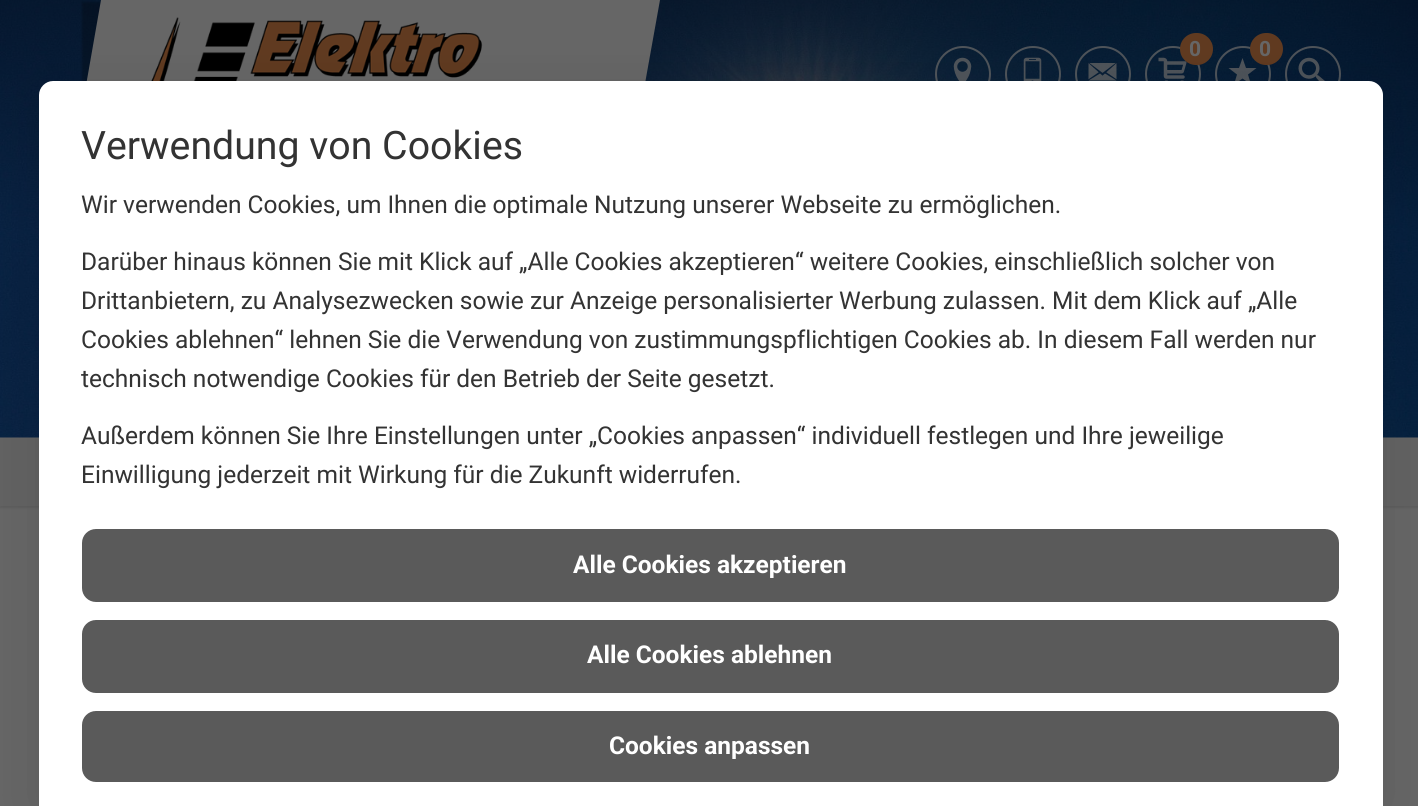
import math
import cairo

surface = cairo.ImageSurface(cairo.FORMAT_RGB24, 1418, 806)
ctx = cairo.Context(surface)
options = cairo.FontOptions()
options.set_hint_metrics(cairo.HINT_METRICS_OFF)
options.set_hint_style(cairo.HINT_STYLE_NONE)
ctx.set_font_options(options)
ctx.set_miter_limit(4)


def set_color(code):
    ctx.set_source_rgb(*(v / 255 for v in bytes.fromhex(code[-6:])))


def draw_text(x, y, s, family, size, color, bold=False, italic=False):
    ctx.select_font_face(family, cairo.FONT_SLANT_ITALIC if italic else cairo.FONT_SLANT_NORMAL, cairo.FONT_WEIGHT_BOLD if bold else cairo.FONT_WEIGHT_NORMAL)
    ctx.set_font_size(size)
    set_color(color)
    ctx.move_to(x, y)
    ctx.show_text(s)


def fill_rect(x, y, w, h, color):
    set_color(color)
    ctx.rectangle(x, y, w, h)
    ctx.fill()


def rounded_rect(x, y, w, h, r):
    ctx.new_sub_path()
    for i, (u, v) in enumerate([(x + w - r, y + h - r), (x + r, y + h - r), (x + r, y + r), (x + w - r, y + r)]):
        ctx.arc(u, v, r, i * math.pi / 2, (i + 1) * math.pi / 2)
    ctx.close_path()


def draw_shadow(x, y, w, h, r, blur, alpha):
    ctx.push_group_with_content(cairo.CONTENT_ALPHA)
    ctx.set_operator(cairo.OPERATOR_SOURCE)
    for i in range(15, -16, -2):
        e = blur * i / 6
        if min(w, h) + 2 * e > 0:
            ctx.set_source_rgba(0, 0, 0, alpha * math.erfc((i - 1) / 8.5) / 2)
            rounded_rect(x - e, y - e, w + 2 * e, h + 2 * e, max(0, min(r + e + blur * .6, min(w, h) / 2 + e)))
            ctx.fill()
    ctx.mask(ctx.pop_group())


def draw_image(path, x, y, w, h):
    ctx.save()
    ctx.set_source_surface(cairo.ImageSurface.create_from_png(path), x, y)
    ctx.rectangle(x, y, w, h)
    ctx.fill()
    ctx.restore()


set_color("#666666")
ctx.paint()
draw_image("assets/img1.png", 0, 0, 1418, 438)
set_color("#000000")
draw_shadow(0, 439, 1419, 69, 0, 1, 0.1)
fill_rect(0, 439, 1418, 67, "#626262")
set_color("#000000")
draw_shadow(82, 2, 559, 245, 0, 1, 0.25)
set_color("#666666")
ctx.new_path()
ctx.move_to(101, 0)
ctx.line_to(660, 0)
ctx.line_to(616, 245)
ctx.line_to(58, 245)
ctx.close_path()
ctx.fill()
draw_image("assets/img2.png", 151, 17, 332, 64)
ctx.arc(963, 74, 27, 0, 2 * math.pi)
ctx.set_source_rgba(0.4, 0.4, 0.4, 0.75)
ctx.stroke()
draw_image("assets/img3.png", 953, 57, 19, 24)
ctx.arc(1033, 74, 27, 0, 2 * math.pi)
ctx.stroke()
draw_image("assets/img4.png", 1023, 57, 19, 24)
ctx.arc(1103, 74, 27, 0, 2 * math.pi)
ctx.stroke()
draw_image("assets/img5.png", 1088, 63, 29, 18)
ctx.arc(1173, 74, 27, 0, 2 * math.pi)
ctx.stroke()
draw_image("assets/img6.png", 1158, 57, 29, 24)
set_color("#603a20")
rounded_rect(1180, 33, 33, 32, 16)
ctx.fill()
draw_text(1189, 56, "0", "Roboto", 21, "#666666", bold=True)
ctx.new_path()
ctx.arc(1243, 74, 27, 0, 2 * math.pi)
ctx.set_source_rgba(0.4, 0.4, 0.4, 0.75)
ctx.stroke()
ctx.new_path()
ctx.move_to(1256.5, 68)
ctx.line_to(1246, 68)
ctx.line_to(1242.5, 58)
ctx.line_to(1239, 68)
ctx.line_to(1228.5, 68)
ctx.line_to(1237, 74.5)
ctx.line_to(1234, 84.5)
ctx.line_to(1242.5, 78.5)
ctx.line_to(1251, 84.5)
ctx.line_to(1248, 74.5)
ctx.close_path()
ctx.fill()
set_color("#603a20")
rounded_rect(1250, 33, 33, 32, 16)
ctx.fill()
draw_text(1259, 56, "0", "Roboto", 21, "#666666", bold=True)
ctx.new_path()
ctx.arc(1313, 74, 27, 0, 2 * math.pi)
ctx.set_source_rgba(0.4, 0.4, 0.4, 0.75)
ctx.stroke()
draw_image("assets/img7.png", 1298, 57, 27, 24)
set_color("#000000")
draw_shadow(39, 91, 1344, 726, 14, 24.5, 0.1)
set_color("#ffffff")
ctx.new_path()
ctx.move_to(53, 81)
ctx.line_to(1369, 81)
ctx.curve_to(1376.5, 81, 1383, 87.5, 1383, 95)
ctx.line_to(1383, 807)
ctx.line_to(39, 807)
ctx.line_to(39, 95)
ctx.curve_to(39, 87.5, 45.5, 81, 53, 81)
ctx.close_path()
ctx.fill()
draw_text(81, 159, "Verwendung von Cookies", "Roboto", 39.25, "#333333")
draw_text(81, 213, "Wir verwenden Cookies, um Ihnen die optimale Nutzung unserer Webseite zu ermöglichen.", "Roboto", 24.5, "#333333")
draw_text(81, 270, "Darüber hinaus können Sie mit Klick auf „Alle Cookies akzeptieren“ weitere Cookies, einschließlich solcher von", "Roboto", 24.5, "#333333")
draw_text(81, 309, "Drittanbietern, zu Analysezwecken sowie zur Anzeige personalisierter Werbung zulassen. Mit dem Klick auf „Alle", "Roboto", 24.5, "#333333")
draw_text(81, 348, "Cookies ablehnen“ lehnen Sie die Verwendung von zustimmungspflichtigen Cookies ab. In diesem Fall werden nur", "Roboto", 24.5, "#333333")
draw_text(81, 387, "technisch notwendige Cookies für den Betrieb der Seite gesetzt.", "Roboto", 24.5, "#333333")
draw_text(81, 444, "Außerdem können Sie Ihre Einstellungen unter „Cookies anpassen“ individuell festlegen und Ihre jeweilige", "Roboto", 24.5, "#333333")
draw_text(81, 483, "Einwilligung jederzeit mit Wirkung für die Zukunft widerrufen.", "Roboto", 24.5, "#333333")
set_color("#5a5a5a")
rounded_rect(83, 530, 1255, 71, 13)
ctx.fill_preserve()
ctx.stroke()
draw_text(573, 573, "Alle Cookies akzeptieren", "Roboto", 24.5, "#ffffff", bold=True)
set_color("#5a5a5a")
rounded_rect(83, 621, 1255, 71, 13)
ctx.fill_preserve()
ctx.stroke()
draw_text(587, 663, "Alle Cookies ablehnen", "Roboto", 24.5, "#ffffff", bold=True)
set_color("#5a5a5a")
rounded_rect(83, 712, 1255, 69, 13)
ctx.fill_preserve()
ctx.stroke()
draw_text(609, 754, "Cookies anpassen", "Roboto", 24.5, "#ffffff", bold=True)
surface.write_to_png("output.png")
